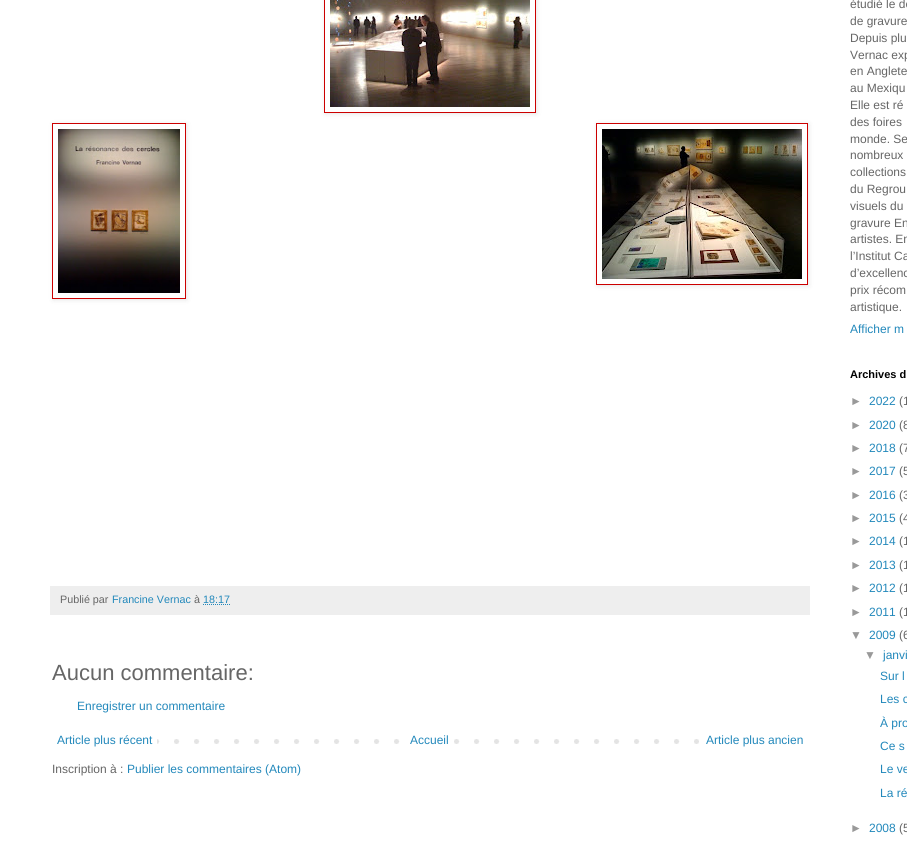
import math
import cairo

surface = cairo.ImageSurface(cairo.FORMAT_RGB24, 907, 865)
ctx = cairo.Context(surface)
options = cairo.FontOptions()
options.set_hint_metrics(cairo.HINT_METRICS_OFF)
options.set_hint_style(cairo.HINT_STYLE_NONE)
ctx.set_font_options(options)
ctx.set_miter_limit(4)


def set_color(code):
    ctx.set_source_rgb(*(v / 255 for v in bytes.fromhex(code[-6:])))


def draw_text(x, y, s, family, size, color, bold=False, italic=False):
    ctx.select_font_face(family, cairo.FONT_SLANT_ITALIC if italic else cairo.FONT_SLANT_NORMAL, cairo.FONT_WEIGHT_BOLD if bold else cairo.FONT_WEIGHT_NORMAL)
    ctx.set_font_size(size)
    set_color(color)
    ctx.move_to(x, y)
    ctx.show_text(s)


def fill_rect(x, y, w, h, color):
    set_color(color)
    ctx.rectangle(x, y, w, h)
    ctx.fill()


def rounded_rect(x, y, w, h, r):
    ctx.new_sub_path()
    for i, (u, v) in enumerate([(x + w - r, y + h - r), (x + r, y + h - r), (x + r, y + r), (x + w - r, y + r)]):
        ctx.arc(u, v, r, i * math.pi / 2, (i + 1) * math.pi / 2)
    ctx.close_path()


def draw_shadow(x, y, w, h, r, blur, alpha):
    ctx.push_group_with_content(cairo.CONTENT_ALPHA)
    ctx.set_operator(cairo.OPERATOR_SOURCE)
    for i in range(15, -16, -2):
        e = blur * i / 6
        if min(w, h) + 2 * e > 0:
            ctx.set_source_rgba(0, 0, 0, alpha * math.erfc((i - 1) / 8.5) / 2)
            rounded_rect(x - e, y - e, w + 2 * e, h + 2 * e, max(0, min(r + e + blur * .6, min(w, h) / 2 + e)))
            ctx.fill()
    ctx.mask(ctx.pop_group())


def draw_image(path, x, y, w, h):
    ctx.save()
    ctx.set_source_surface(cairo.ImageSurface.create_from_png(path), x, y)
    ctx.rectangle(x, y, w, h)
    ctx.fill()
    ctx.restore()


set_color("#ffffff")
ctx.paint()
ctx.save()
ctx.set_fill_rule(cairo.FILL_RULE_EVEN_ODD)
ctx.new_path()
ctx.move_to(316, 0)
ctx.line_to(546, 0)
ctx.line_to(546, 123)
ctx.line_to(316, 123)
ctx.close_path()
ctx.move_to(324, -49)
ctx.line_to(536, -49)
ctx.line_to(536, 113)
ctx.line_to(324, 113)
ctx.close_path()
ctx.clip()
set_color("#000000")
draw_shadow(325, -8, 212, 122, 0, 2.5, 0.1)
ctx.restore()
ctx.rectangle(324.5, -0.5, 211, 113)
set_color("#cc0000")
ctx.set_line_width(1)
ctx.stroke()
draw_image("assets/img1.png", 330, 0, 200, 107)
ctx.save()
ctx.set_fill_rule(cairo.FILL_RULE_EVEN_ODD)
ctx.new_path()
ctx.move_to(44, 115)
ctx.line_to(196, 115)
ctx.line_to(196, 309)
ctx.line_to(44, 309)
ctx.close_path()
ctx.move_to(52, 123)
ctx.line_to(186, 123)
ctx.line_to(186, 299)
ctx.line_to(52, 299)
ctx.close_path()
ctx.clip()
set_color("#000000")
draw_shadow(53, 124, 134, 176, 0, 2.5, 0.1)
ctx.restore()
ctx.rectangle(52.5, 123.5, 133, 175)
ctx.stroke()
draw_image("assets/img2.png", 58, 129, 122, 164)
ctx.save()
ctx.set_fill_rule(cairo.FILL_RULE_EVEN_ODD)
ctx.new_path()
ctx.move_to(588, 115)
ctx.line_to(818, 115)
ctx.line_to(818, 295)
ctx.line_to(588, 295)
ctx.close_path()
ctx.move_to(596, 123)
ctx.line_to(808, 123)
ctx.line_to(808, 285)
ctx.line_to(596, 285)
ctx.close_path()
ctx.clip()
set_color("#000000")
draw_shadow(597, 124, 212, 162, 0, 2.5, 0.1)
ctx.restore()
ctx.rectangle(596.5, 123.5, 211, 161)
ctx.stroke()
draw_image("assets/img3.png", 602, 129, 200, 150)
fill_rect(50, 586, 760, 29, "#eeeeee")
draw_text(60, 603, "Publié par", "Liberation Sans", 10.75, "#666666")
draw_text(112, 603, "Francine Vernac", "Liberation Sans", 10.75, "#2288bb")
draw_text(194, 603, "à", "Liberation Sans", 10.75, "#666666")
draw_text(203, 603, "18:17", "Liberation Sans", 10.75, "#2288bb")
ctx.new_path()
ctx.move_to(203, 604.5)
ctx.line_to(230, 604.5)
ctx.set_dash([1, 1])
ctx.stroke()
draw_text(52, 680, "Aucun commentaire:", "Liberation Sans", 22, "#666666")
draw_text(77, 710, "Enregistrer un commentaire", "Liberation Sans", 12, "#2288bb")
draw_image("assets/img4.png", 157, 739, 542, 5)
draw_text(57, 744, "Article plus récent", "Liberation Sans", 12, "#2288bb")
fill_rect(414, 739, 26, 5, "#ffffff")
draw_text(410, 744, "Accueil", "Liberation Sans", 12, "#2288bb")
draw_text(706, 744, "Article plus ancien", "Liberation Sans", 12, "#2288bb")
draw_text(52, 773, "Inscription à :", "Liberation Sans", 12, "#666666")
draw_text(127, 773, "Publier les commentaires (Atom)", "Liberation Sans", 12, "#2288bb")
draw_text(850, 8, "étudié le de", "Liberation Sans", 12, "#666666")
draw_text(850, 25, "de gravure", "Liberation Sans", 12, "#666666")
draw_text(850, 42, "Depuis plu", "Liberation Sans", 12, "#666666")
draw_text(850, 59, "Vernac exp", "Liberation Sans", 12, "#666666")
draw_text(850, 75, "en Anglete", "Liberation Sans", 12, "#666666")
draw_text(850, 92, "au Mexiqu", "Liberation Sans", 12, "#666666")
draw_text(850, 109, "Elle est ré", "Liberation Sans", 12, "#666666")
draw_text(850, 126, "des foires", "Liberation Sans", 12, "#666666")
draw_text(850, 143, "monde. Se", "Liberation Sans", 12, "#666666")
draw_text(850, 159, "nombreux", "Liberation Sans", 12, "#666666")
draw_text(850, 176, "collections", "Liberation Sans", 12, "#666666")
draw_text(850, 193, "du Regrou", "Liberation Sans", 12, "#666666")
draw_text(850, 210, "visuels du", "Liberation Sans", 12, "#666666")
draw_text(850, 227, "gravure En", "Liberation Sans", 12, "#666666")
draw_text(850, 243, "artistes. En", "Liberation Sans", 12, "#666666")
draw_text(850, 260, "l’Institut Ca", "Liberation Sans", 12, "#666666")
draw_text(850, 277, "d’excellenc", "Liberation Sans", 12, "#666666")
draw_text(850, 294, "prix récom", "Liberation Sans", 12, "#666666")
draw_text(850, 311, "artistique.", "Liberation Sans", 12, "#666666")
draw_text(850, 333, "Afficher m", "Liberation Sans", 12, "#2288bb")
draw_text(850, 378, "Archives d", "Liberation Sans", 11, "#000000", bold=True)
draw_text(850, 405, "►", "Liberation Sans", 12, "#999999")
draw_text(869, 405, "2022", "Liberation Sans", 12, "#2288bb")
draw_text(899, 405, "(1", "Liberation Sans", 12, "#666666")
draw_text(850, 429, "►", "Liberation Sans", 12, "#999999")
draw_text(869, 429, "2020", "Liberation Sans", 12, "#2288bb")
draw_text(899, 429, "(8", "Liberation Sans", 12, "#666666")
draw_text(850, 452, "►", "Liberation Sans", 12, "#999999")
draw_text(869, 452, "2018", "Liberation Sans", 12, "#2288bb")
draw_text(899, 452, "(7", "Liberation Sans", 12, "#666666")
draw_text(850, 475, "►", "Liberation Sans", 12, "#999999")
draw_text(869, 475, "2017", "Liberation Sans", 12, "#2288bb")
draw_text(899, 475, "(5", "Liberation Sans", 12, "#666666")
draw_text(850, 499, "►", "Liberation Sans", 12, "#999999")
draw_text(869, 499, "2016", "Liberation Sans", 12, "#2288bb")
draw_text(899, 499, "(3", "Liberation Sans", 12, "#666666")
draw_text(850, 522, "►", "Liberation Sans", 12, "#999999")
draw_text(869, 522, "2015", "Liberation Sans", 12, "#2288bb")
draw_text(899, 522, "(4", "Liberation Sans", 12, "#666666")
draw_text(850, 545, "►", "Liberation Sans", 12, "#999999")
draw_text(869, 545, "2014", "Liberation Sans", 12, "#2288bb")
draw_text(899, 545, "(1", "Liberation Sans", 12, "#666666")
draw_text(850, 569, "►", "Liberation Sans", 12, "#999999")
draw_text(869, 569, "2013", "Liberation Sans", 12, "#2288bb")
draw_text(899, 569, "(1", "Liberation Sans", 12, "#666666")
draw_text(850, 592, "►", "Liberation Sans", 12, "#999999")
draw_text(869, 592, "2012", "Liberation Sans", 12, "#2288bb")
draw_text(899, 592, "(1", "Liberation Sans", 12, "#666666")
draw_text(850, 616, "►", "Liberation Sans", 12, "#999999")
draw_text(869, 616, "2011", "Liberation Sans", 12, "#2288bb")
draw_text(899, 616, "(1", "Liberation Sans", 12, "#666666")
draw_text(850, 639, "▼", "Liberation Sans", 12, "#999999")
draw_text(869, 639, "2009", "Liberation Sans", 12, "#2288bb")
draw_text(899, 639, "(6", "Liberation Sans", 12, "#666666")
draw_text(864, 659, "▼", "Liberation Sans", 12, "#999999")
draw_text(883, 659, "janvi", "Liberation Sans", 12, "#2288bb")
draw_text(880, 680, "Sur l", "Liberation Sans", 12, "#2288bb")
draw_text(880, 703, "Les c", "Liberation Sans", 12, "#2288bb")
draw_text(880, 727, "À pro", "Liberation Sans", 12, "#2288bb")
draw_text(880, 750, "Ce s", "Liberation Sans", 12, "#2288bb")
draw_text(880, 773, "Le ve", "Liberation Sans", 12, "#2288bb")
draw_text(880, 797, "La ré", "Liberation Sans", 12, "#2288bb")
draw_text(850, 832, "►", "Liberation Sans", 12, "#999999")
draw_text(869, 832, "2008", "Liberation Sans", 12, "#2288bb")
draw_text(899, 832, "(5", "Liberation Sans", 12, "#666666")
surface.write_to_png("output.png")
